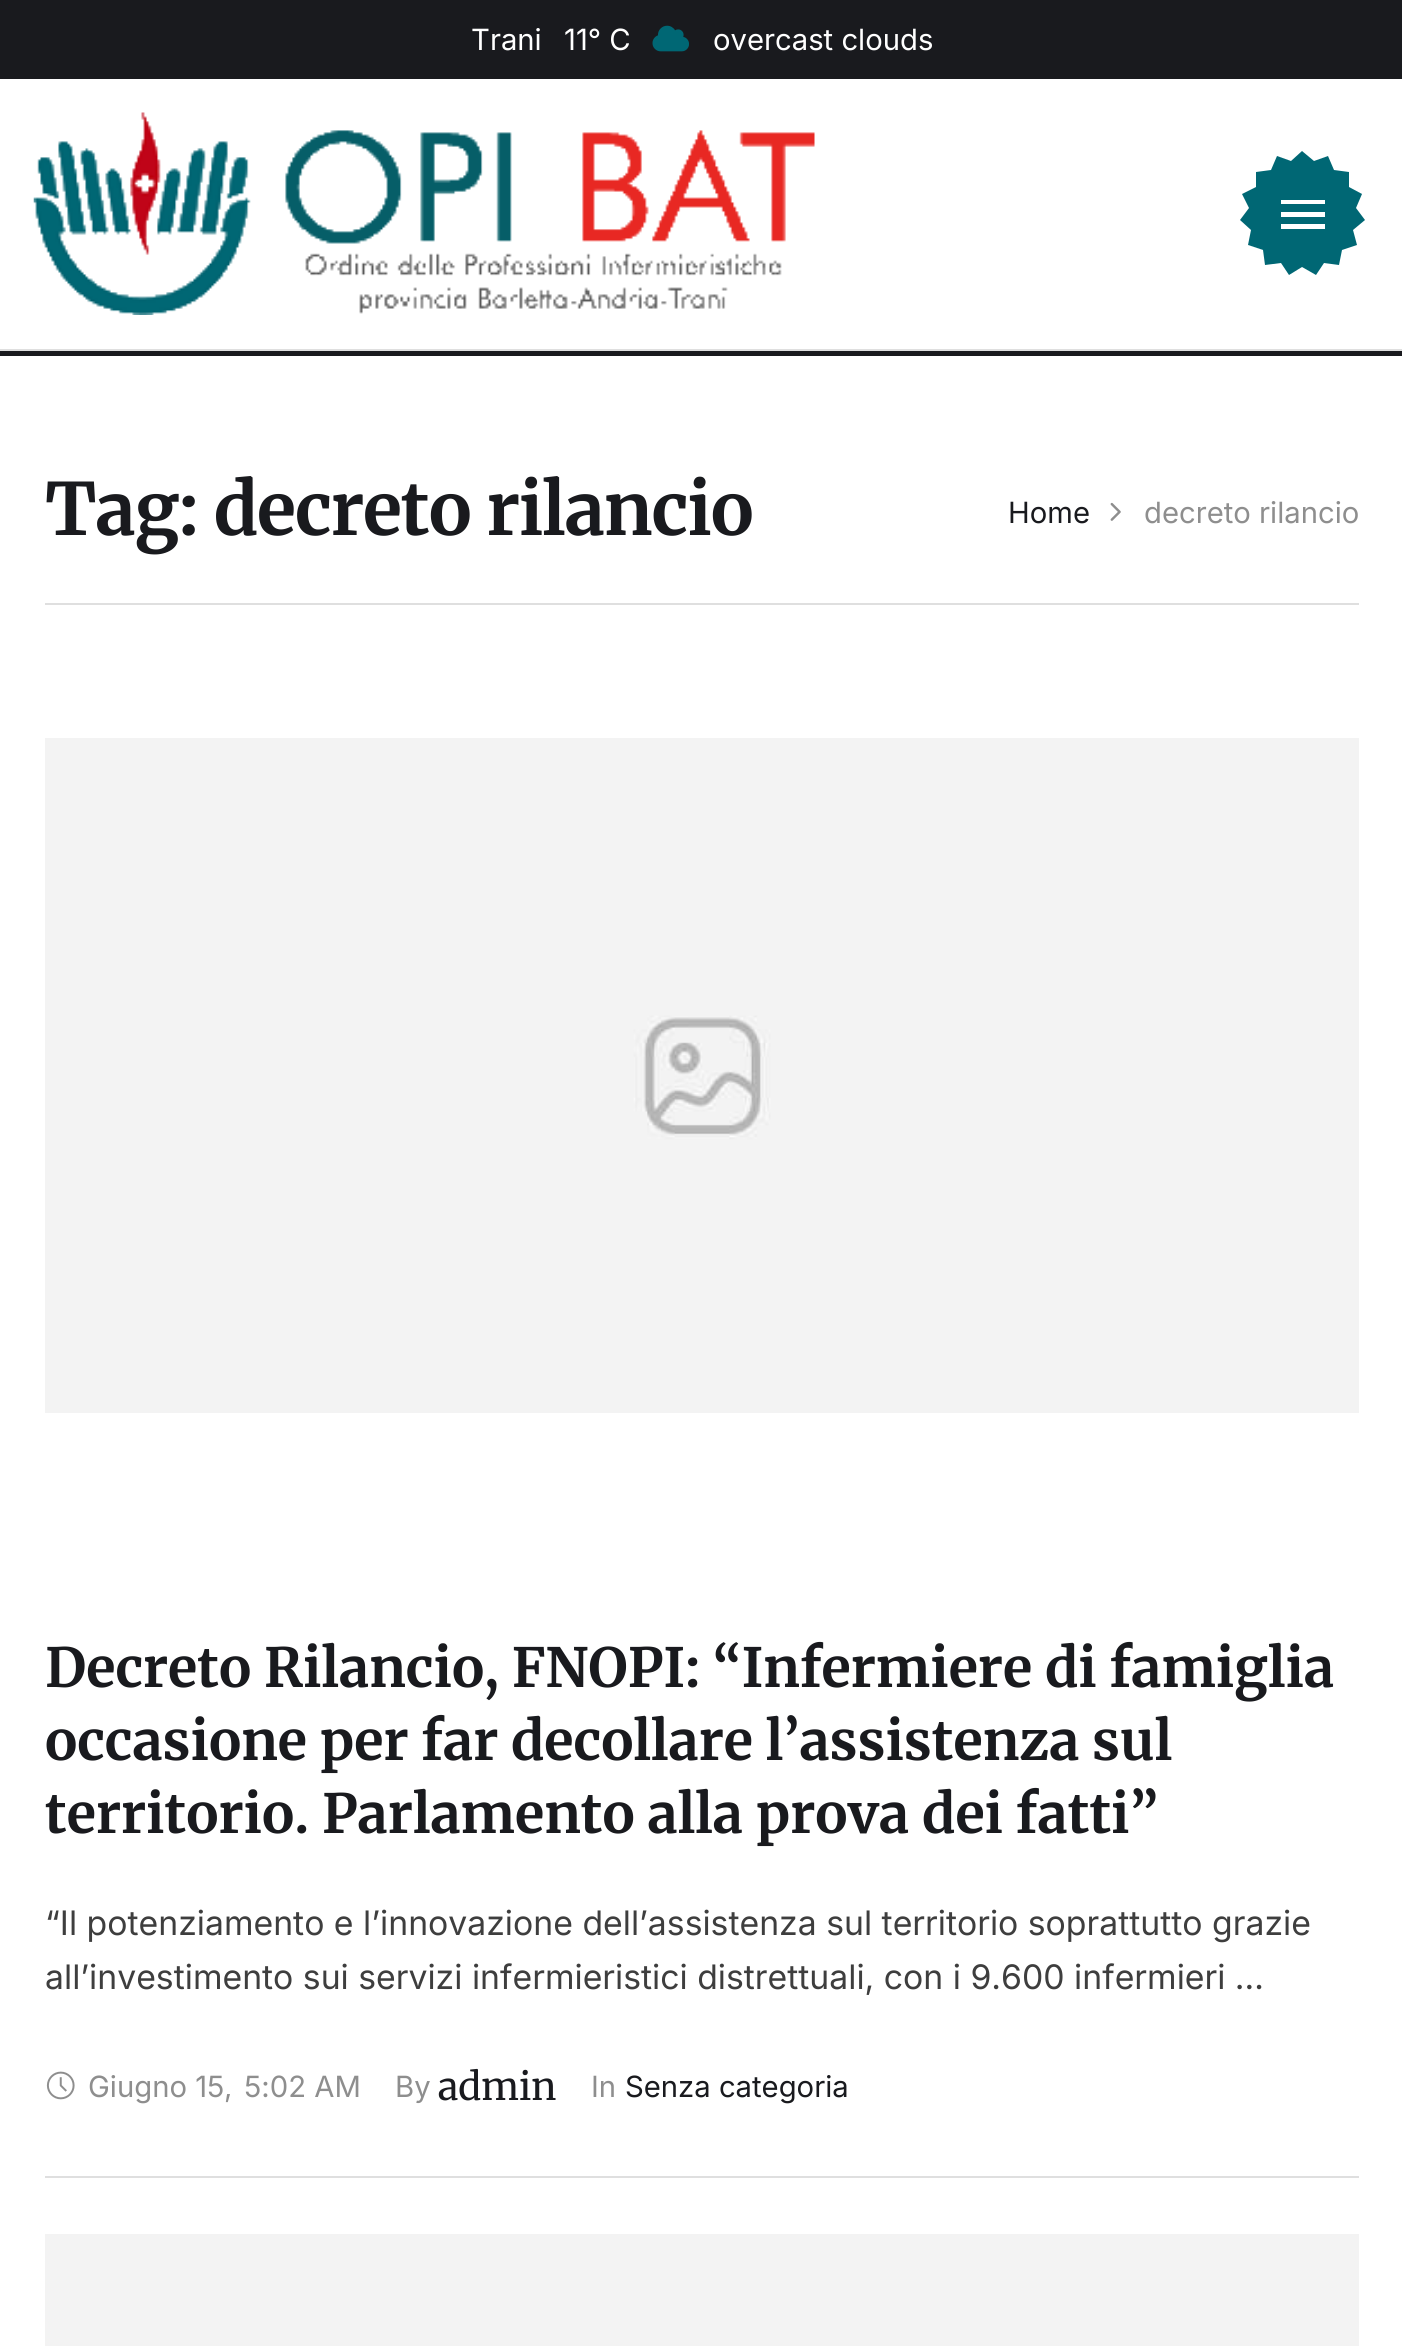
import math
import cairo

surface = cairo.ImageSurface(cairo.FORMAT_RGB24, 1402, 2346)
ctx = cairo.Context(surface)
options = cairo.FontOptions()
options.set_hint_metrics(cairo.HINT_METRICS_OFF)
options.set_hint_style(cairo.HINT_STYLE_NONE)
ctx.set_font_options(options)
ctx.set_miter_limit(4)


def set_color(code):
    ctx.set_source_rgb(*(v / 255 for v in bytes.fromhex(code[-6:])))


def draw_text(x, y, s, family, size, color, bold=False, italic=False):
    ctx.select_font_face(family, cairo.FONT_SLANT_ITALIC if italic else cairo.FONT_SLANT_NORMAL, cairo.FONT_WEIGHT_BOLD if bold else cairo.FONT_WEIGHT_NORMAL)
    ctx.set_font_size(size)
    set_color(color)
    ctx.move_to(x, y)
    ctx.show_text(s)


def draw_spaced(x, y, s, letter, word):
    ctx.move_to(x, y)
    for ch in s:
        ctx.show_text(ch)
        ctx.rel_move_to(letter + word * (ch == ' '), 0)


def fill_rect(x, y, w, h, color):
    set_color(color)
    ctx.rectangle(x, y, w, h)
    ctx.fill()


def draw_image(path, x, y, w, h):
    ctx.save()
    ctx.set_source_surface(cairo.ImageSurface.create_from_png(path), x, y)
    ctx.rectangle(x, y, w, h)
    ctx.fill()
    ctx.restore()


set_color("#ffffff")
ctx.paint()
fill_rect(0, 351, 1402, 5, "#191a1e")
fill_rect(0, 0, 1402, 79, "#191a1e")
draw_text(471, 50, "Trani", "Inter", 29.25, "#ffffff")
draw_text(564, 50, "11° C", "Inter", 29.25, "#ffffff")
draw_image("assets/img1.png", 652, 25, 37, 27)
draw_text(713, 50, "overcast clouds", "Inter", 29.25, "#ffffff")
fill_rect(0, 349, 1402, 2, "#dfdfdf")
draw_image("assets/img2.png", 33, 112, 782, 203)
set_color("#006774")
ctx.new_path()
ctx.move_to(1302, 151)
ctx.line_to(1314, 161)
ctx.line_to(1328, 156)
ctx.line_to(1334, 170)
ctx.line_to(1349, 172)
ctx.line_to(1349, 187)
ctx.line_to(1362, 194)
ctx.line_to(1356, 208)
ctx.line_to(1365, 220)
ctx.line_to(1353, 230)
ctx.line_to(1357, 245)
ctx.line_to(1342, 250)
ctx.line_to(1339, 265)
ctx.line_to(1324, 263)
ctx.line_to(1316, 275)
ctx.line_to(1302, 267)
ctx.line_to(1289, 275)
ctx.line_to(1281, 263)
ctx.line_to(1265, 265)
ctx.line_to(1263, 250)
ctx.line_to(1248, 245)
ctx.line_to(1251, 230)
ctx.line_to(1240, 220)
ctx.line_to(1249, 208)
ctx.line_to(1242, 194)
ctx.line_to(1256, 187)
ctx.line_to(1256, 172)
ctx.line_to(1271, 170)
ctx.line_to(1277, 156)
ctx.line_to(1291, 161)
ctx.close_path()
ctx.fill()
set_color("#ffffff")
ctx.new_path()
ctx.move_to(1325, 224)
ctx.line_to(1281, 224)
ctx.line_to(1281, 229)
ctx.line_to(1325, 229)
ctx.close_path()
ctx.move_to(1325, 212)
ctx.line_to(1281, 212)
ctx.line_to(1281, 217)
ctx.line_to(1325, 217)
ctx.close_path()
ctx.move_to(1325, 200)
ctx.line_to(1281, 200)
ctx.line_to(1281, 204)
ctx.line_to(1325, 204)
ctx.close_path()
ctx.fill()
fill_rect(45, 603, 1314, 2, "#dfdfdf")
ctx.select_font_face("Merriweather", cairo.FONT_SLANT_NORMAL, cairo.FONT_WEIGHT_BOLD)
ctx.set_font_size(72)
set_color("#191a1e")
draw_spaced(45, 535, "Tag: decreto rilancio", -1.1, 0)
draw_text(1008, 523, "Home", "Inter", 29.25, "#191a1e")
draw_image("assets/img3.png", 1110, 502, 11, 19)
draw_text(1144, 523, "decreto rilancio", "Inter", 29.25, "#8e8e8e")
draw_image("assets/img4.png", 45, 738, 1314, 675)
draw_text(45, 1687, "Decreto Rilancio, FNOPI: “Infermiere di famiglia", "Merriweather", 54, "#191a1e", bold=True)
draw_text(45, 1760, "occasione per far decollare l’assistenza sul", "Merriweather", 54, "#191a1e", bold=True)
draw_text(45, 1833, "territorio. Parlamento alla prova dei fatti”", "Merriweather", 54, "#191a1e", bold=True)
draw_text(45, 1935, "“Il potenziamento e l’innovazione dell’assistenza sul territorio soprattutto grazie", "Inter", 33.75, "#3e3e3e")
draw_text(45, 1989, "all’investimento sui servizi infermieristici distrettuali, con i 9.600 infermieri …", "Inter", 33.75, "#3e3e3e")
draw_image("assets/img5.png", 46, 2071, 29, 29)
draw_text(88, 2097, "Giugno 15", "Inter", 29.25, "#8e8e8e")
draw_text(224, 2097, ",", "Inter", 29.25, "#8e8e8e")
draw_text(244, 2097, "5:02 AM", "Inter", 29.25, "#8e8e8e")
draw_text(395, 2097, "By", "Inter", 29.25, "#8e8e8e")
draw_text(438, 2100, "admin", "Merriweather", 38, "#191a1e")
draw_text(591, 2097, "In", "Inter", 29.25, "#8e8e8e")
draw_text(625, 2097, "Senza categoria", "Inter", 29.25, "#191a1e")
fill_rect(45, 2176, 1314, 2, "#dfdfdf")
fill_rect(45, 2234, 1314, 112, "#f3f3f3")
surface.write_to_png("output.png")
